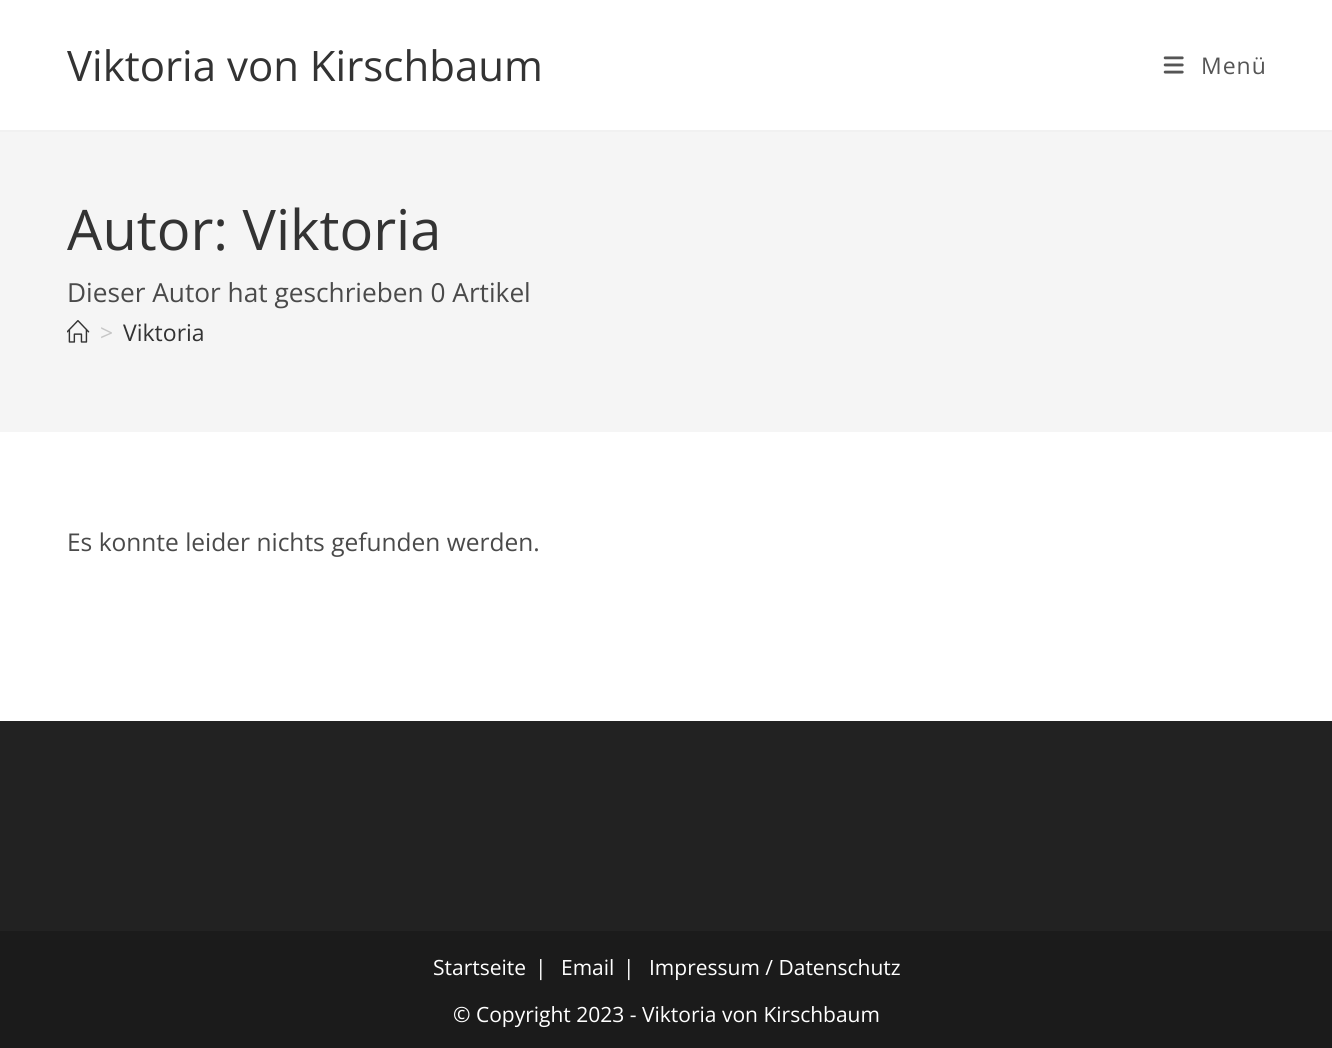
import math
import cairo

surface = cairo.ImageSurface(cairo.FORMAT_RGB24, 1332, 1048)
ctx = cairo.Context(surface)
options = cairo.FontOptions()
options.set_hint_metrics(cairo.HINT_METRICS_OFF)
options.set_hint_style(cairo.HINT_STYLE_NONE)
ctx.set_font_options(options)
ctx.set_miter_limit(4)


def set_color(code):
    ctx.set_source_rgb(*(v / 255 for v in bytes.fromhex(code[-6:])))


def draw_text(x, y, s, family, size, color, bold=False, italic=False):
    ctx.select_font_face(family, cairo.FONT_SLANT_ITALIC if italic else cairo.FONT_SLANT_NORMAL, cairo.FONT_WEIGHT_BOLD if bold else cairo.FONT_WEIGHT_NORMAL)
    ctx.set_font_size(size)
    set_color(color)
    ctx.move_to(x, y)
    ctx.show_text(s)


def draw_spaced(x, y, s, letter, word):
    ctx.move_to(x, y)
    for ch in s:
        ctx.show_text(ch)
        ctx.rel_move_to(letter + word * (ch == ' '), 0)


def fill_rect(x, y, w, h, color):
    set_color(color)
    ctx.rectangle(x, y, w, h)
    ctx.fill()


def draw_image(path, x, y, w, h):
    ctx.save()
    ctx.set_source_surface(cairo.ImageSurface.create_from_png(path), x, y)
    ctx.rectangle(x, y, w, h)
    ctx.fill()
    ctx.restore()


set_color("#ffffff")
ctx.paint()
fill_rect(0, 130, 1332, 2, "#f1f1f1")
draw_text(67, 81, "Viktoria von Kirschbaum", "Open Sans", 42, "#333333")
draw_image("assets/img1.png", 1163, 56, 21, 18)
ctx.set_font_size(23)
set_color("#555555")
draw_spaced(1201, 74, "Menü", 1, 0)
fill_rect(0, 132, 1332, 300, "#f5f5f5")
draw_text(67, 250, "Autor: Viktoria", "Open Sans", 56, "#333333")
draw_text(67, 302, "Dieser Autor hat geschrieben 0 Artikel", "Open Sans", 26.25, "#4a4a4a")
draw_image("assets/img2.png", 67, 320, 23, 23)
draw_text(100, 341, ">", "Open Sans", 23, "#c6c6c6")
draw_text(123, 341, "Viktoria", "Open Sans", 23, "#333333")
draw_text(67, 551, "Es konnte leider nichts gefunden werden.", "Open Sans", 24.5, "#4a4a4a")
fill_rect(0, 721, 1332, 210, "#222222")
fill_rect(0, 931, 1332, 117, "#1b1b1b")
draw_text(433, 975, "Startseite", "Open Sans", 21, "#ffffff")
draw_text(535, 975, "|", "Open Sans", 21, "#ffffff")
draw_text(561, 975, "Email", "Open Sans", 21, "#ffffff")
draw_text(623, 975, "|", "Open Sans", 21, "#ffffff")
draw_text(649, 975, "Impressum / Datenschutz", "Open Sans", 21, "#ffffff")
draw_text(453, 1022, "© Copyright 2023 - Viktoria von Kirschbaum", "Open Sans", 21, "#ffffff")
surface.write_to_png("output.png")
